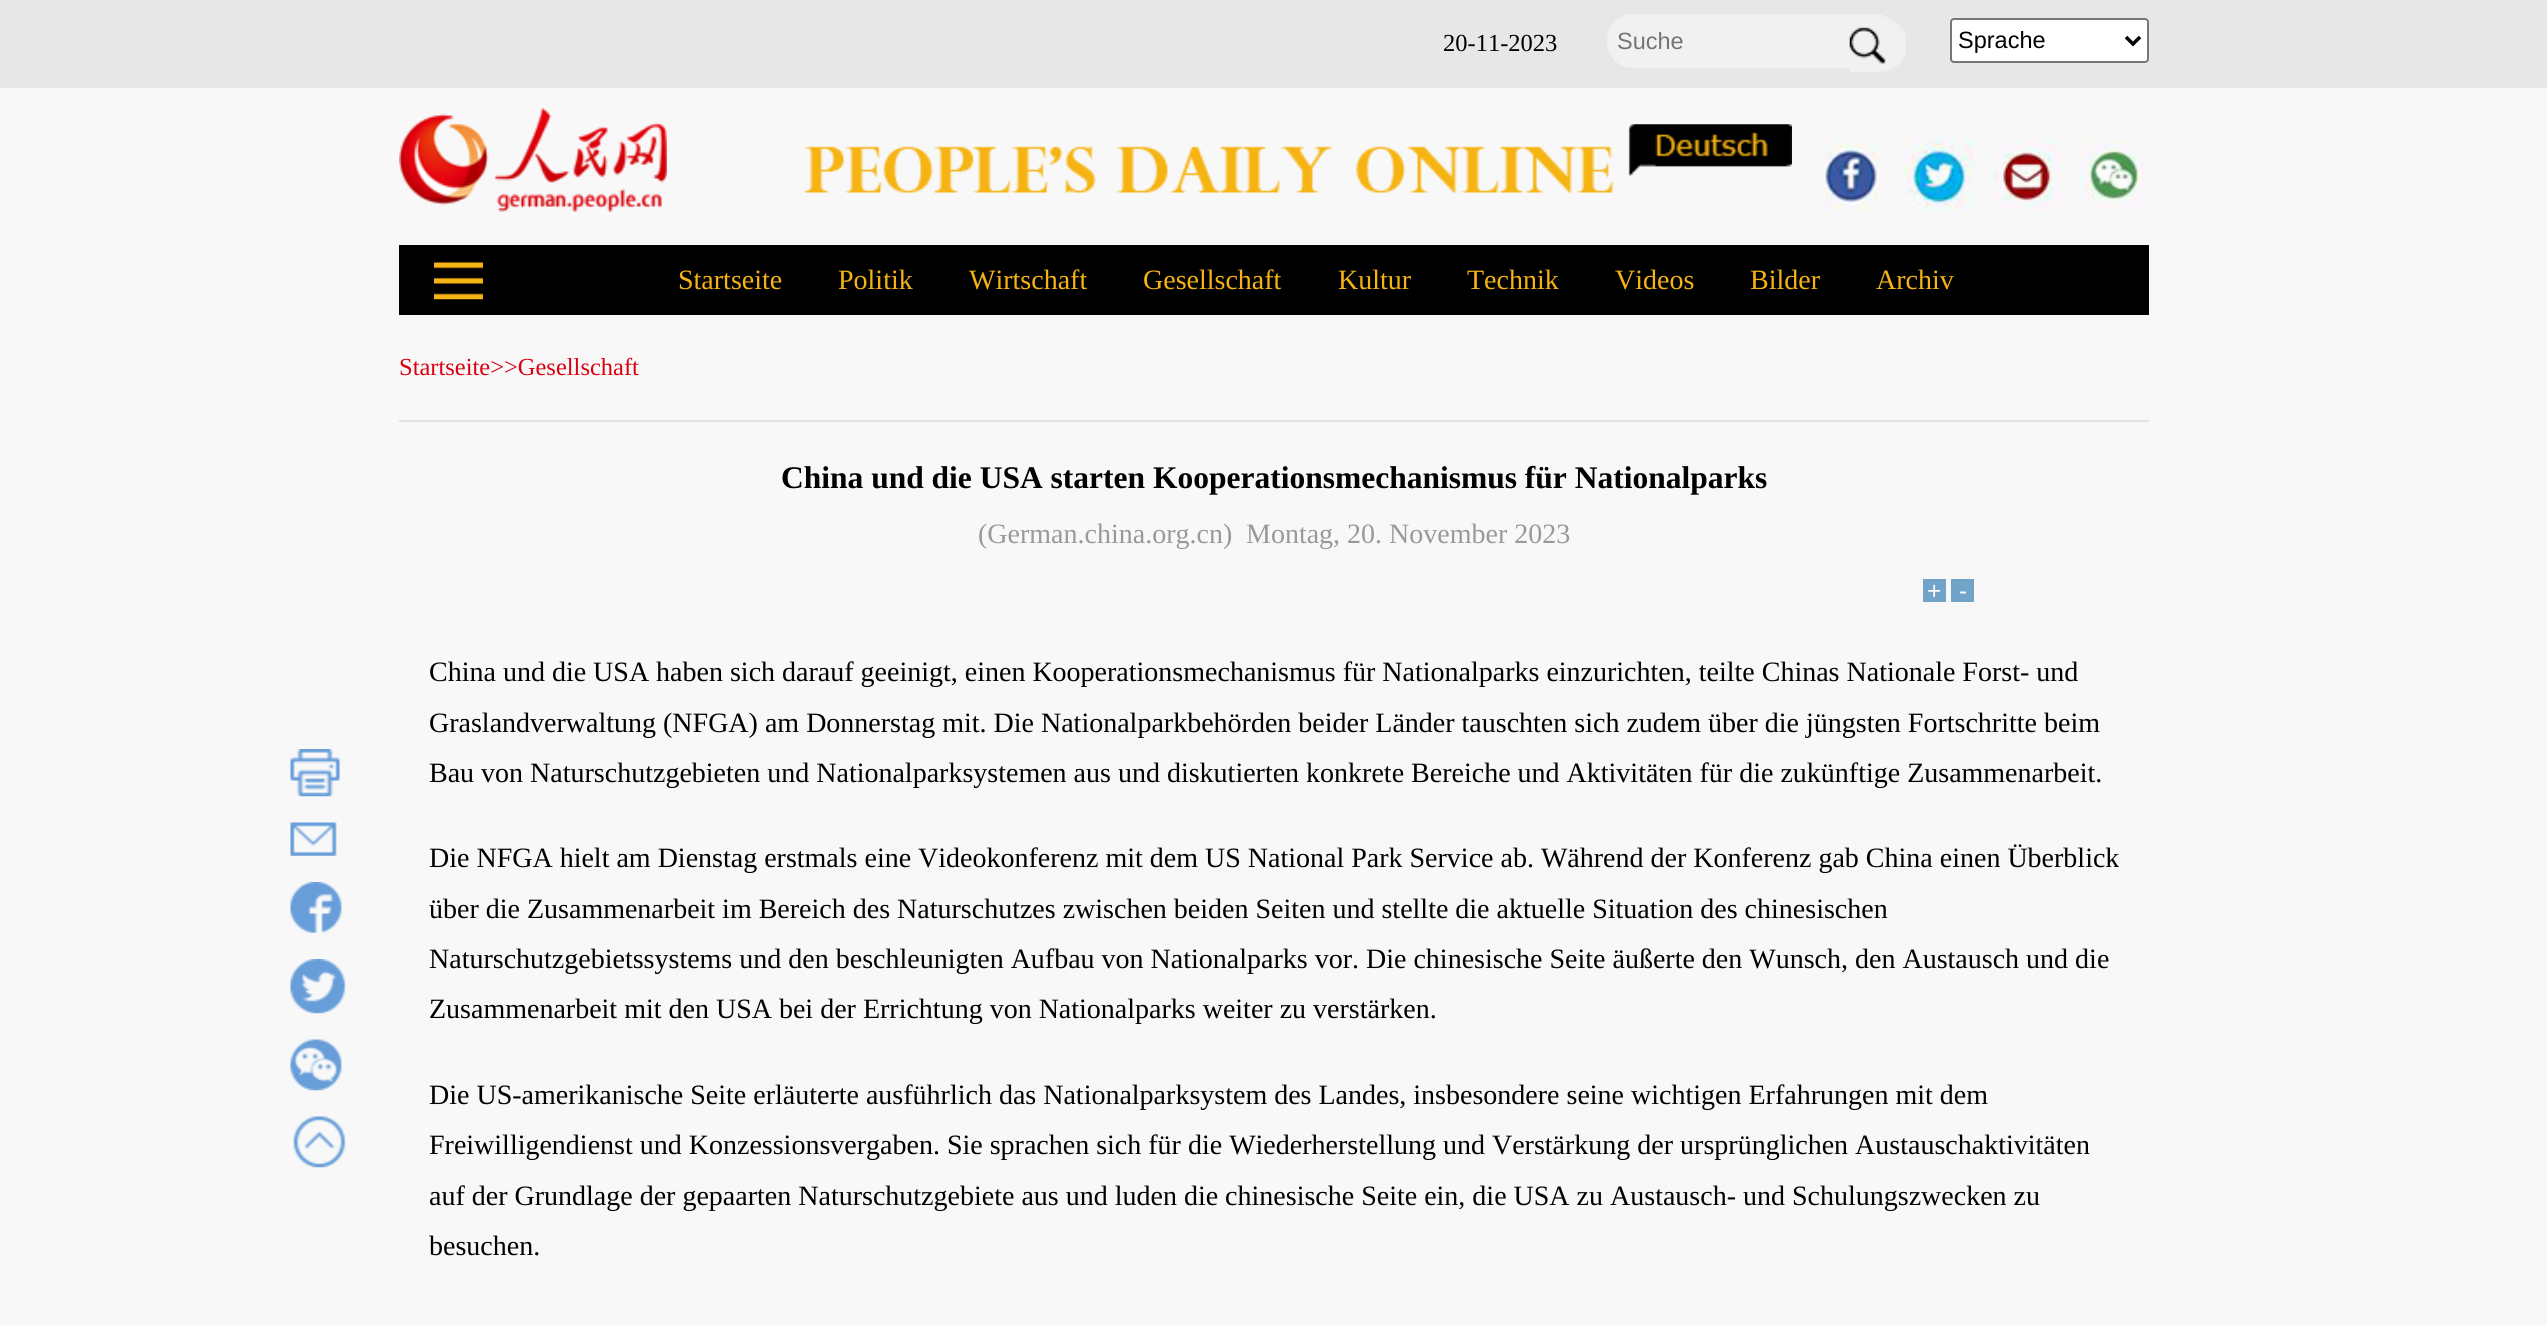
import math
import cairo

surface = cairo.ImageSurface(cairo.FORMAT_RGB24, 2547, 1326)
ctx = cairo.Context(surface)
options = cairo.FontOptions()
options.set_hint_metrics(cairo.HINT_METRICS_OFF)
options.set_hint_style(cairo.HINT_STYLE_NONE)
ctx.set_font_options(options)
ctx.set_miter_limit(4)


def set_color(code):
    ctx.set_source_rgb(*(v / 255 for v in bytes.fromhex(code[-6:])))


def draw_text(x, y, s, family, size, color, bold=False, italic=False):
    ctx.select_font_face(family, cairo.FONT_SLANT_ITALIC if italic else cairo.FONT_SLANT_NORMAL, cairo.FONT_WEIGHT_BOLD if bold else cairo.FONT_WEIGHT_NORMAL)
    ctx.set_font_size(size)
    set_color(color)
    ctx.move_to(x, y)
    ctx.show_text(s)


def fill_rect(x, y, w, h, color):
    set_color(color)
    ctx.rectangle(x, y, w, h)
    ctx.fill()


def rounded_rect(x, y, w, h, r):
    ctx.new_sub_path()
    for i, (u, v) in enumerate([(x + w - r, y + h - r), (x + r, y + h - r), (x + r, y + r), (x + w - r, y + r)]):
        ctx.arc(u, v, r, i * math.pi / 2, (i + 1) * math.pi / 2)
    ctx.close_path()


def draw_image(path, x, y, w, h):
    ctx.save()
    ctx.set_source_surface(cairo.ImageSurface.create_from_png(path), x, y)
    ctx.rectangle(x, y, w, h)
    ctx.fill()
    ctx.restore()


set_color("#f8f8f8")
ctx.paint()
fill_rect(0, 0, 2547, 88, "#e7e7e7")
draw_text(1443, 51, "20-11-2023", "Liberation Serif", 24.5, "#000000")
set_color("#f1f1f1")
rounded_rect(1607, 14, 294, 54, 26)
ctx.fill()
draw_text(1617, 49, "Suche", "Liberation Sans", 23.5, "#757575")
draw_image("assets/img1.png", 1849, 18, 57, 54)
set_color("#ffffff")
rounded_rect(1951, 19, 197, 43, 3)
ctx.fill_preserve()
set_color("#767676")
ctx.stroke()
ctx.new_path()
ctx.move_to(2126, 37)
ctx.line_to(2133, 44)
ctx.line_to(2140, 37)
set_color("#000000")
ctx.set_line_width(3.5)
ctx.stroke()
draw_text(1958, 48, "Sprache", "Liberation Sans", 23.5, "#000000")
draw_image("assets/img2.png", 399, 108, 268, 104)
draw_image("assets/img3.png", 804, 124, 988, 69)
draw_image("assets/img4.png", 1823, 140, 56, 70)
draw_image("assets/img5.png", 1904, 140, 70, 70)
draw_image("assets/img6.png", 1991, 140, 71, 70)
draw_image("assets/img7.png", 2079, 140, 70, 70)
fill_rect(399, 245, 1750, 70, "#000000")
draw_image("assets/img8.png", 434, 262, 49, 38)
draw_text(678, 289, "Startseite", "Liberation Serif", 28, "#f6b414")
draw_text(838, 289, "Politik", "Liberation Serif", 28, "#f6b414")
draw_text(969, 289, "Wirtschaft", "Liberation Serif", 28, "#f6b414")
draw_text(1143, 289, "Gesellschaft", "Liberation Serif", 28, "#f6b414")
draw_text(1338, 289, "Kultur", "Liberation Serif", 28, "#f6b414")
draw_text(1467, 289, "Technik", "Liberation Serif", 28, "#f6b414")
draw_text(1615, 289, "Videos", "Liberation Serif", 28, "#f6b414")
draw_text(1750, 289, "Bilder", "Liberation Serif", 28, "#f6b414")
draw_text(1876, 289, "Archiv", "Liberation Serif", 28, "#f6b414")
draw_text(399, 375, "Startseite>>Gesellschaft", "Liberation Serif", 24.5, "#d90010")
draw_image("assets/img9.png", 290, 749, 50, 48)
draw_image("assets/img10.png", 290, 822, 47, 34)
draw_image("assets/img11.png", 290, 882, 52, 51)
draw_image("assets/img12.png", 290, 959, 56, 55)
draw_image("assets/img13.png", 290, 1039, 52, 52)
draw_image("assets/img14.png", 293, 1116, 53, 52)
fill_rect(399, 420, 1750, 2, "#e1e1e1")
draw_text(781, 488, "China und die USA starten Kooperationsmechanismus für Nationalparks", "Liberation Serif", 31.5, "#000000", bold=True)
draw_text(978, 543, "(German.china.org.cn)", "Liberation Serif", 28, "#999999")
draw_text(1246, 543, "Montag, 20. November 2023", "Liberation Serif", 28, "#999999")
fill_rect(1923, 579, 23, 23, "#72a4c9")
draw_text(1927, 599, "+", "Liberation Sans", 24.5, "#ffffff")
fill_rect(1951, 579, 23, 23, "#72a4c9")
draw_text(1959, 599, "-", "Liberation Sans", 24.5, "#ffffff")
draw_text(429, 681, "China und die USA haben sich darauf geeinigt, einen Kooperationsmechanismus für Nationalparks einzurichten, teilte Chinas Nationale Forst- und", "Liberation Serif", 28, "#000000")
draw_text(429, 732, "Graslandverwaltung (NFGA) am Donnerstag mit. Die Nationalparkbehörden beider Länder tauschten sich zudem über die jüngsten Fortschritte beim", "Liberation Serif", 28, "#000000")
draw_text(429, 782, "Bau von Naturschutzgebieten und Nationalparksystemen aus und diskutierten konkrete Bereiche und Aktivitäten für die zukünftige Zusammenarbeit.", "Liberation Serif", 28, "#000000")
draw_text(429, 867, "Die NFGA hielt am Dienstag erstmals eine Videokonferenz mit dem US National Park Service ab. Während der Konferenz gab China einen Überblick", "Liberation Serif", 28, "#000000")
draw_text(429, 918, "über die Zusammenarbeit im Bereich des Naturschutzes zwischen beiden Seiten und stellte die aktuelle Situation des chinesischen", "Liberation Serif", 28, "#000000")
draw_text(429, 968, "Naturschutzgebietssystems und den beschleunigten Aufbau von Nationalparks vor. Die chinesische Seite äußerte den Wunsch, den Austausch und die", "Liberation Serif", 28, "#000000")
draw_text(429, 1018, "Zusammenarbeit mit den USA bei der Errichtung von Nationalparks weiter zu verstärken.", "Liberation Serif", 28, "#000000")
draw_text(429, 1104, "Die US-amerikanische Seite erläuterte ausführlich das Nationalparksystem des Landes, insbesondere seine wichtigen Erfahrungen mit dem", "Liberation Serif", 28, "#000000")
draw_text(429, 1154, "Freiwilligendienst und Konzessionsvergaben. Sie sprachen sich für die Wiederherstellung und Verstärkung der ursprünglichen Austauschaktivitäten", "Liberation Serif", 28, "#000000")
draw_text(429, 1205, "auf der Grundlage der gepaarten Naturschutzgebiete aus und luden die chinesische Seite ein, die USA zu Austausch- und Schulungszwecken zu", "Liberation Serif", 28, "#000000")
draw_text(429, 1255, "besuchen.", "Liberation Serif", 28, "#000000")
surface.write_to_png("output.png")
